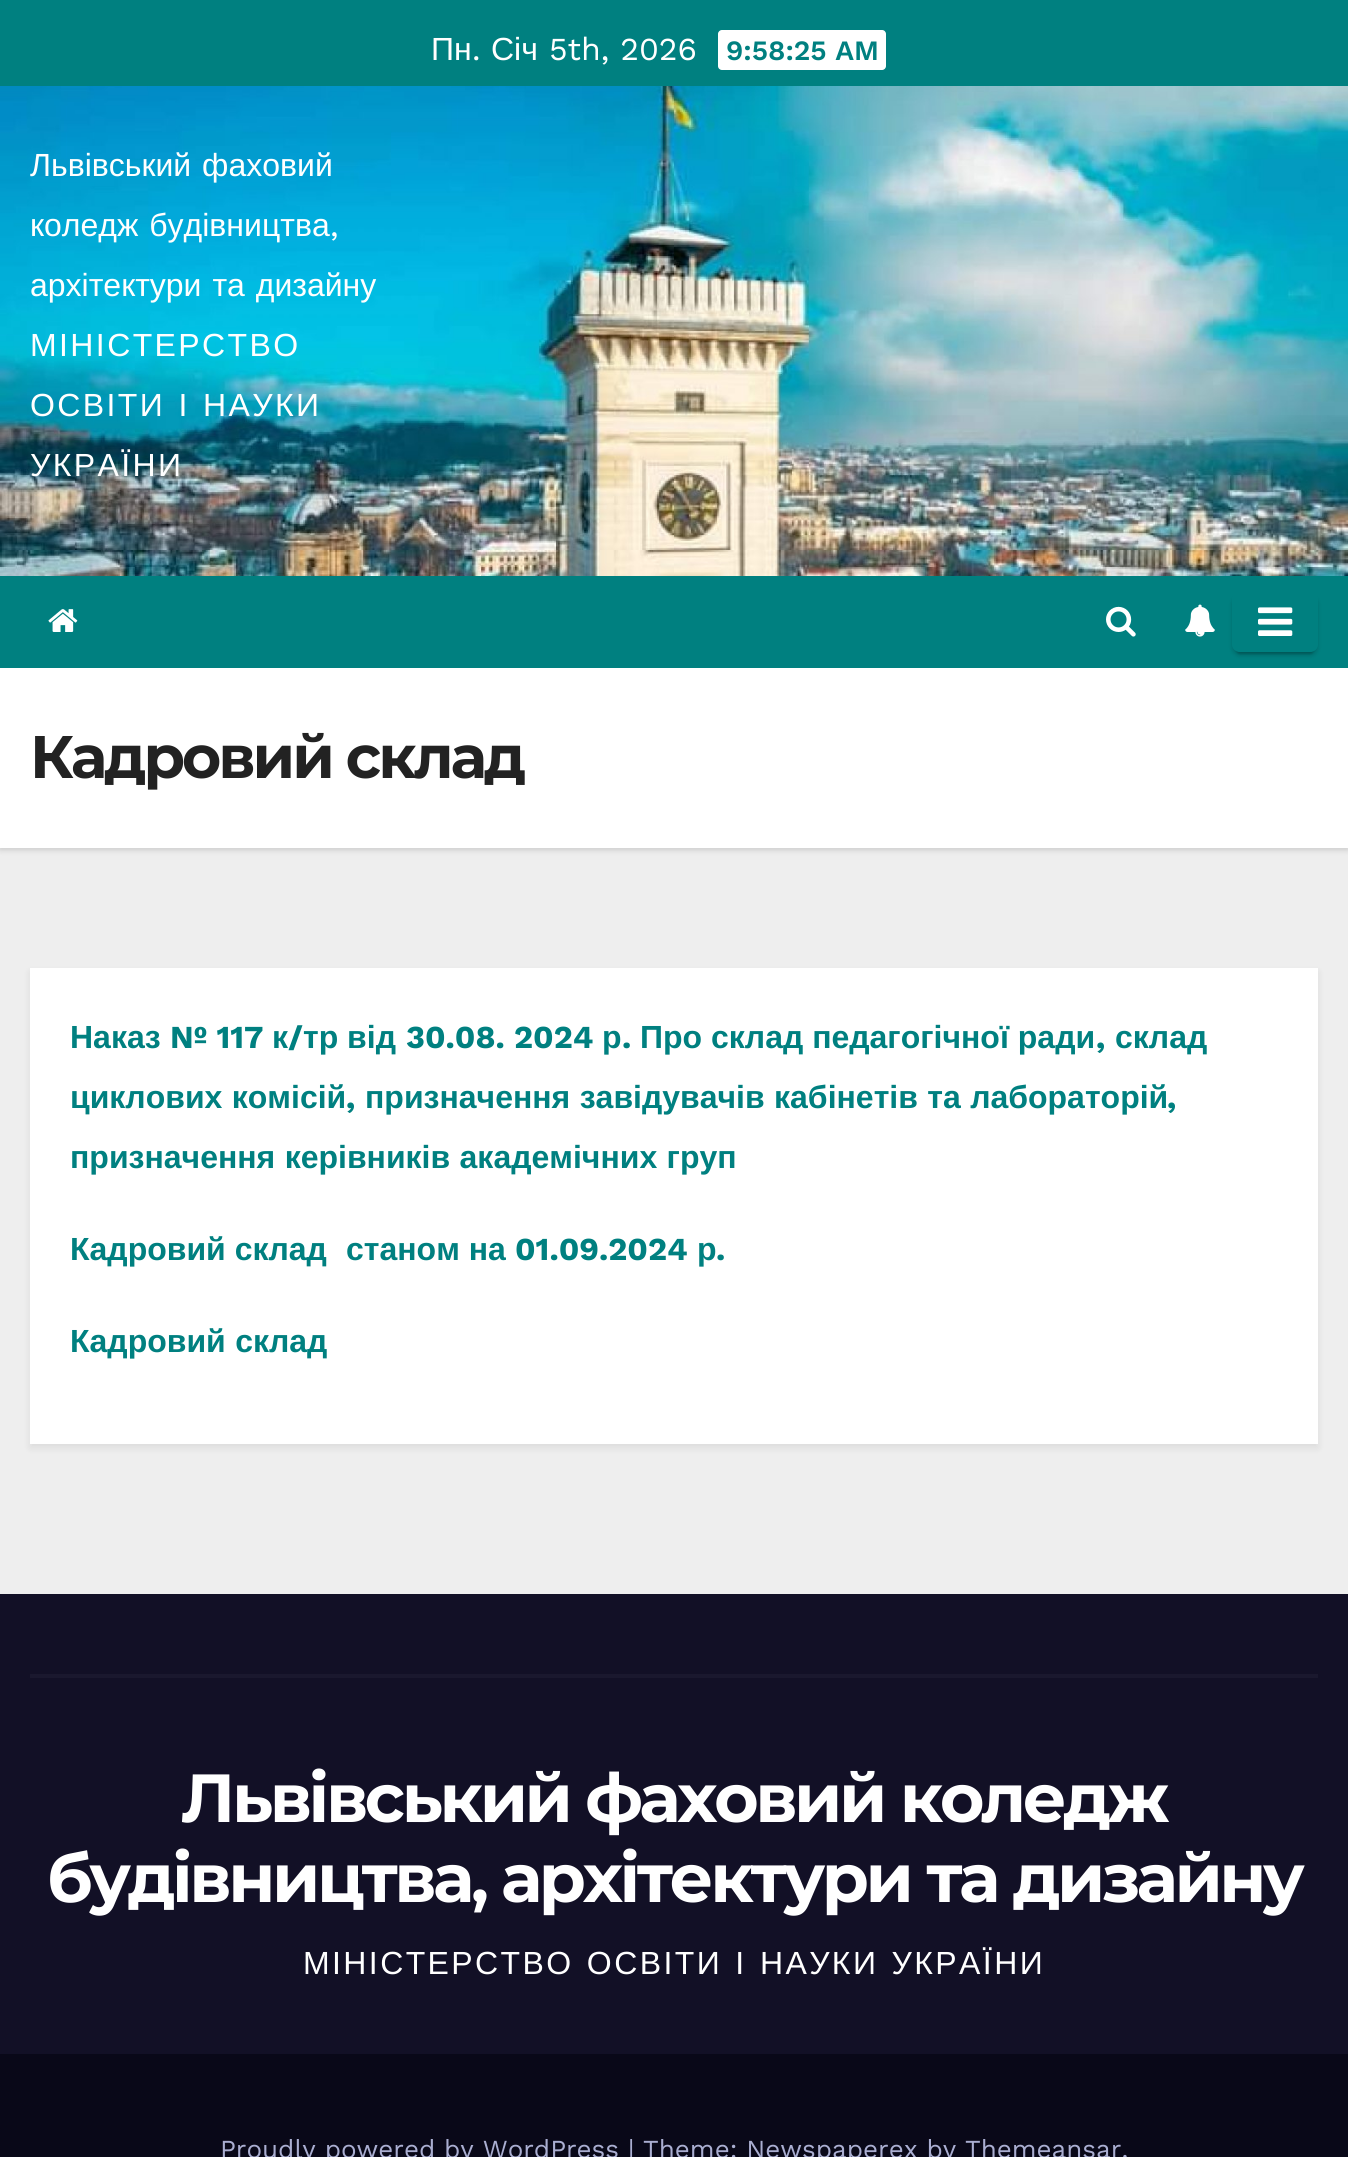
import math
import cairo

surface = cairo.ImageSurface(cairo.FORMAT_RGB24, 1348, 2157)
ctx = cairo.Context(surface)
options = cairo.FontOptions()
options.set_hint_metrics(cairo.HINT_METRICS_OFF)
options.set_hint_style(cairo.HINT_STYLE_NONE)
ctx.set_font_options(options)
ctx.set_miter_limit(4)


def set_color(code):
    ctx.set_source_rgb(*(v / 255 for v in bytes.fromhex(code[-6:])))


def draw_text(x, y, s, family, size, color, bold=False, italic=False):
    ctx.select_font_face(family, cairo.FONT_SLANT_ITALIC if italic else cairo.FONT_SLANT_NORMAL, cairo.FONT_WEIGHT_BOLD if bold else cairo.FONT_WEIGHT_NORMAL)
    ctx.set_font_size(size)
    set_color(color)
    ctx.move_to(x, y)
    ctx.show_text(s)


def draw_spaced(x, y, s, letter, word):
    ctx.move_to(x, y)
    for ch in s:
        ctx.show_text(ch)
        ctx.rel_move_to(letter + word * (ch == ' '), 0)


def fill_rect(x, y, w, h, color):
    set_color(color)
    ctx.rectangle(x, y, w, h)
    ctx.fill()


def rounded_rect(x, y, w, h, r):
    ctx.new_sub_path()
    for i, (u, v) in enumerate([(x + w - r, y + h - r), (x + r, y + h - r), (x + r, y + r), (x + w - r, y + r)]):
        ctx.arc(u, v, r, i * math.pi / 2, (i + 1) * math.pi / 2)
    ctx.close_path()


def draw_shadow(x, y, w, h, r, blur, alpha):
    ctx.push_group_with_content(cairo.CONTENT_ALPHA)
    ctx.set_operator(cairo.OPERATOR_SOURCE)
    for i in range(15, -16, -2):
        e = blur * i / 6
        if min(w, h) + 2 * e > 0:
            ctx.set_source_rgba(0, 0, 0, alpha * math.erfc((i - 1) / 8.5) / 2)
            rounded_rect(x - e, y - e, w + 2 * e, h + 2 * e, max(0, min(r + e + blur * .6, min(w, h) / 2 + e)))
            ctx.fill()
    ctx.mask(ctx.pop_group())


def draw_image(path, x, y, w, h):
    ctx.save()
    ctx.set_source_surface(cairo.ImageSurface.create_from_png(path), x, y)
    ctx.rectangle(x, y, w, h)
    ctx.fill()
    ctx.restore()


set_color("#eeeeee")
ctx.paint()
fill_rect(0, 0, 1348, 86, "#008080")
draw_text(431, 60, "Пн", "Liberation Sans", 32, "#ffffff")
draw_text(472, 60, ".", "Work Sans", 32, "#ffffff")
draw_text(491, 60, "Січ", "Liberation Sans", 32, "#ffffff")
draw_text(549, 60, "5th, 2026", "Work Sans", 32, "#ffffff")
rounded_rect(718, 30, 168, 40, 4)
ctx.fill()
draw_text(726, 60, "9:58:25 AM", "Work Sans SemiBold", 28, "#008080")
draw_image("assets/img1.png", 0, 86, 1348, 490)
ctx.select_font_face("Liberation Sans")
ctx.set_font_size(32)
set_color("#ffffff")
draw_spaced(30, 176, "Львівський фаховий", 0, 2)
draw_spaced(30, 236, "коледж будівництва", 0, 2)
draw_text(330, 236, ",", "Work Sans", 32, "#ffffff")
ctx.select_font_face("Liberation Sans")
draw_spaced(30, 296, "архітектури та дизайну", 0, 2)
draw_spaced(30, 356, "МІНІСТЕРСТВО", 2.4, 0)
draw_spaced(30, 416, "ОСВІТИ І НАУКИ", 2.4, 2)
draw_spaced(30, 476, "УКРАЇНИ", 2.4, 0)
set_color("#000000")
draw_shadow(0, 670, 1348, 180, 0, 3, 0.15)
fill_rect(0, 576, 1348, 92, "#008080")
draw_image("assets/img2.png", 48, 609, 30, 23)
draw_image("assets/img3.png", 1106, 606, 30, 31)
draw_image("assets/img4.png", 1185, 604, 30, 33)
ctx.save()
ctx.set_fill_rule(cairo.FILL_RULE_EVEN_ODD)
ctx.new_path()
ctx.move_to(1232, 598)
ctx.line_to(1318, 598)
ctx.line_to(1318, 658)
ctx.line_to(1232, 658)
ctx.close_path()
ctx.move_to(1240, 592)
ctx.line_to(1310, 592)
ctx.curve_to(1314.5, 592, 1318, 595.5, 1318, 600)
ctx.line_to(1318, 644)
ctx.curve_to(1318, 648.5, 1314.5, 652, 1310, 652)
ctx.line_to(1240, 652)
ctx.curve_to(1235.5, 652, 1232, 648.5, 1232, 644)
ctx.line_to(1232, 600)
ctx.curve_to(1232, 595.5, 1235.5, 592, 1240, 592)
ctx.close_path()
ctx.clip()
set_color("#000000")
draw_shadow(1236, 602, 78, 52, 4, 1, 0.2)
ctx.restore()
ctx.save()
ctx.set_fill_rule(cairo.FILL_RULE_EVEN_ODD)
ctx.new_path()
ctx.move_to(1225, 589)
ctx.line_to(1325, 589)
ctx.line_to(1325, 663)
ctx.line_to(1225, 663)
ctx.close_path()
ctx.move_to(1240, 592)
ctx.line_to(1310, 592)
ctx.curve_to(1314.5, 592, 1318, 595.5, 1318, 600)
ctx.line_to(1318, 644)
ctx.curve_to(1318, 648.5, 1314.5, 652, 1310, 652)
ctx.line_to(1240, 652)
ctx.curve_to(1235.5, 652, 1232, 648.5, 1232, 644)
ctx.line_to(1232, 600)
ctx.curve_to(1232, 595.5, 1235.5, 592, 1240, 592)
ctx.close_path()
ctx.clip()
set_color("#000000")
draw_shadow(1232, 596, 86, 60, 8, 2, 0.14)
ctx.restore()
draw_image("assets/img5.png", 1258, 607, 35, 29)
fill_rect(0, 668, 1348, 180, "#ffffff")
ctx.select_font_face("Montserrat", cairo.FONT_SLANT_NORMAL, cairo.FONT_WEIGHT_BOLD)
ctx.set_font_size(60)
set_color("#222222")
draw_spaced(30, 778, "Кадровий склад", -3, 0)
set_color("#000000")
draw_shadow(30, 972, 1288, 476, 0, 4, 0.08)
fill_rect(30, 968, 1288, 476, "#ffffff")
draw_text(70, 1048, "Наказ", "Liberation Sans", 32, "#008080", bold=True)
draw_text(170, 1048, "№ 117", "Work Sans", 32, "#008080", bold=True)
draw_text(272, 1048, "к", "Liberation Sans", 32, "#008080", bold=True)
draw_text(288, 1048, "/", "Work Sans", 32, "#008080", bold=True)
draw_text(303, 1048, "тр від", "Liberation Sans", 32, "#008080", bold=True)
draw_text(406, 1048, "30.08. 2024", "Work Sans", 32, "#008080", bold=True)
draw_text(602, 1048, "р", "Liberation Sans", 32, "#008080", bold=True)
draw_text(622, 1048, ".", "Work Sans", 32, "#008080", bold=True)
draw_text(640, 1048, "Про склад педагогічної ради", "Liberation Sans", 32, "#008080", bold=True)
draw_text(1096, 1048, ",", "Work Sans", 32, "#008080", bold=True)
draw_text(1115, 1048, "склад", "Liberation Sans", 32, "#008080", bold=True)
draw_spaced(70, 1108, "циклових комісій", 0, 0.5)
draw_text(346, 1108, ",", "Work Sans", 32, "#008080", bold=True)
ctx.select_font_face("Liberation Sans", cairo.FONT_SLANT_NORMAL, cairo.FONT_WEIGHT_BOLD)
draw_spaced(365, 1108, "призначення завідувачів кабінетів та лабораторій", 0, 0.5)
draw_text(1167, 1108, ",", "Work Sans", 32, "#008080", bold=True)
ctx.select_font_face("Liberation Sans", cairo.FONT_SLANT_NORMAL, cairo.FONT_WEIGHT_BOLD)
draw_spaced(70, 1168, "призначення керівників академічних груп", 0, 0.5)
draw_text(70, 1260, "Кадровий склад", "Liberation Sans", 32, "#008080", bold=True)
draw_text(346, 1260, "станом на", "Liberation Sans", 32, "#008080", bold=True)
draw_text(515, 1260, "01.09.2024", "Work Sans", 32, "#008080", bold=True)
draw_text(697, 1260, "р", "Liberation Sans", 32, "#008080", bold=True)
draw_text(716, 1260, ".", "Work Sans", 32, "#008080", bold=True)
ctx.select_font_face("Liberation Sans", cairo.FONT_SLANT_NORMAL, cairo.FONT_WEIGHT_BOLD)
draw_spaced(70, 1352, "Кадровий склад", 0, 0.5)
fill_rect(0, 1594, 1348, 460, "#121026")
fill_rect(30, 1674, 1288, 4, "#1a182e")
ctx.select_font_face("Montserrat", cairo.FONT_SLANT_NORMAL, cairo.FONT_WEIGHT_BOLD)
ctx.set_font_size(68)
set_color("#ffffff")
draw_spaced(181, 1822, "Львівський фаховий коледж", -3.4, 0)
draw_spaced(47, 1902, "будівництва, архітектури та дизайну", -3.4, 0)
ctx.select_font_face("Liberation Sans")
ctx.set_font_size(32)
draw_spaced(303, 1974, "МІНІСТЕРСТВО ОСВІТИ І НАУКИ УКРАЇНИ", 2.4, 2)
fill_rect(0, 2054, 1348, 103, "#090818")
draw_text(220, 2158, "Proudly powered by WordPress | Theme: Newspaperex by Themeansar.", "Work Sans", 26, "#aaaed1")
surface.write_to_png("output.png")
